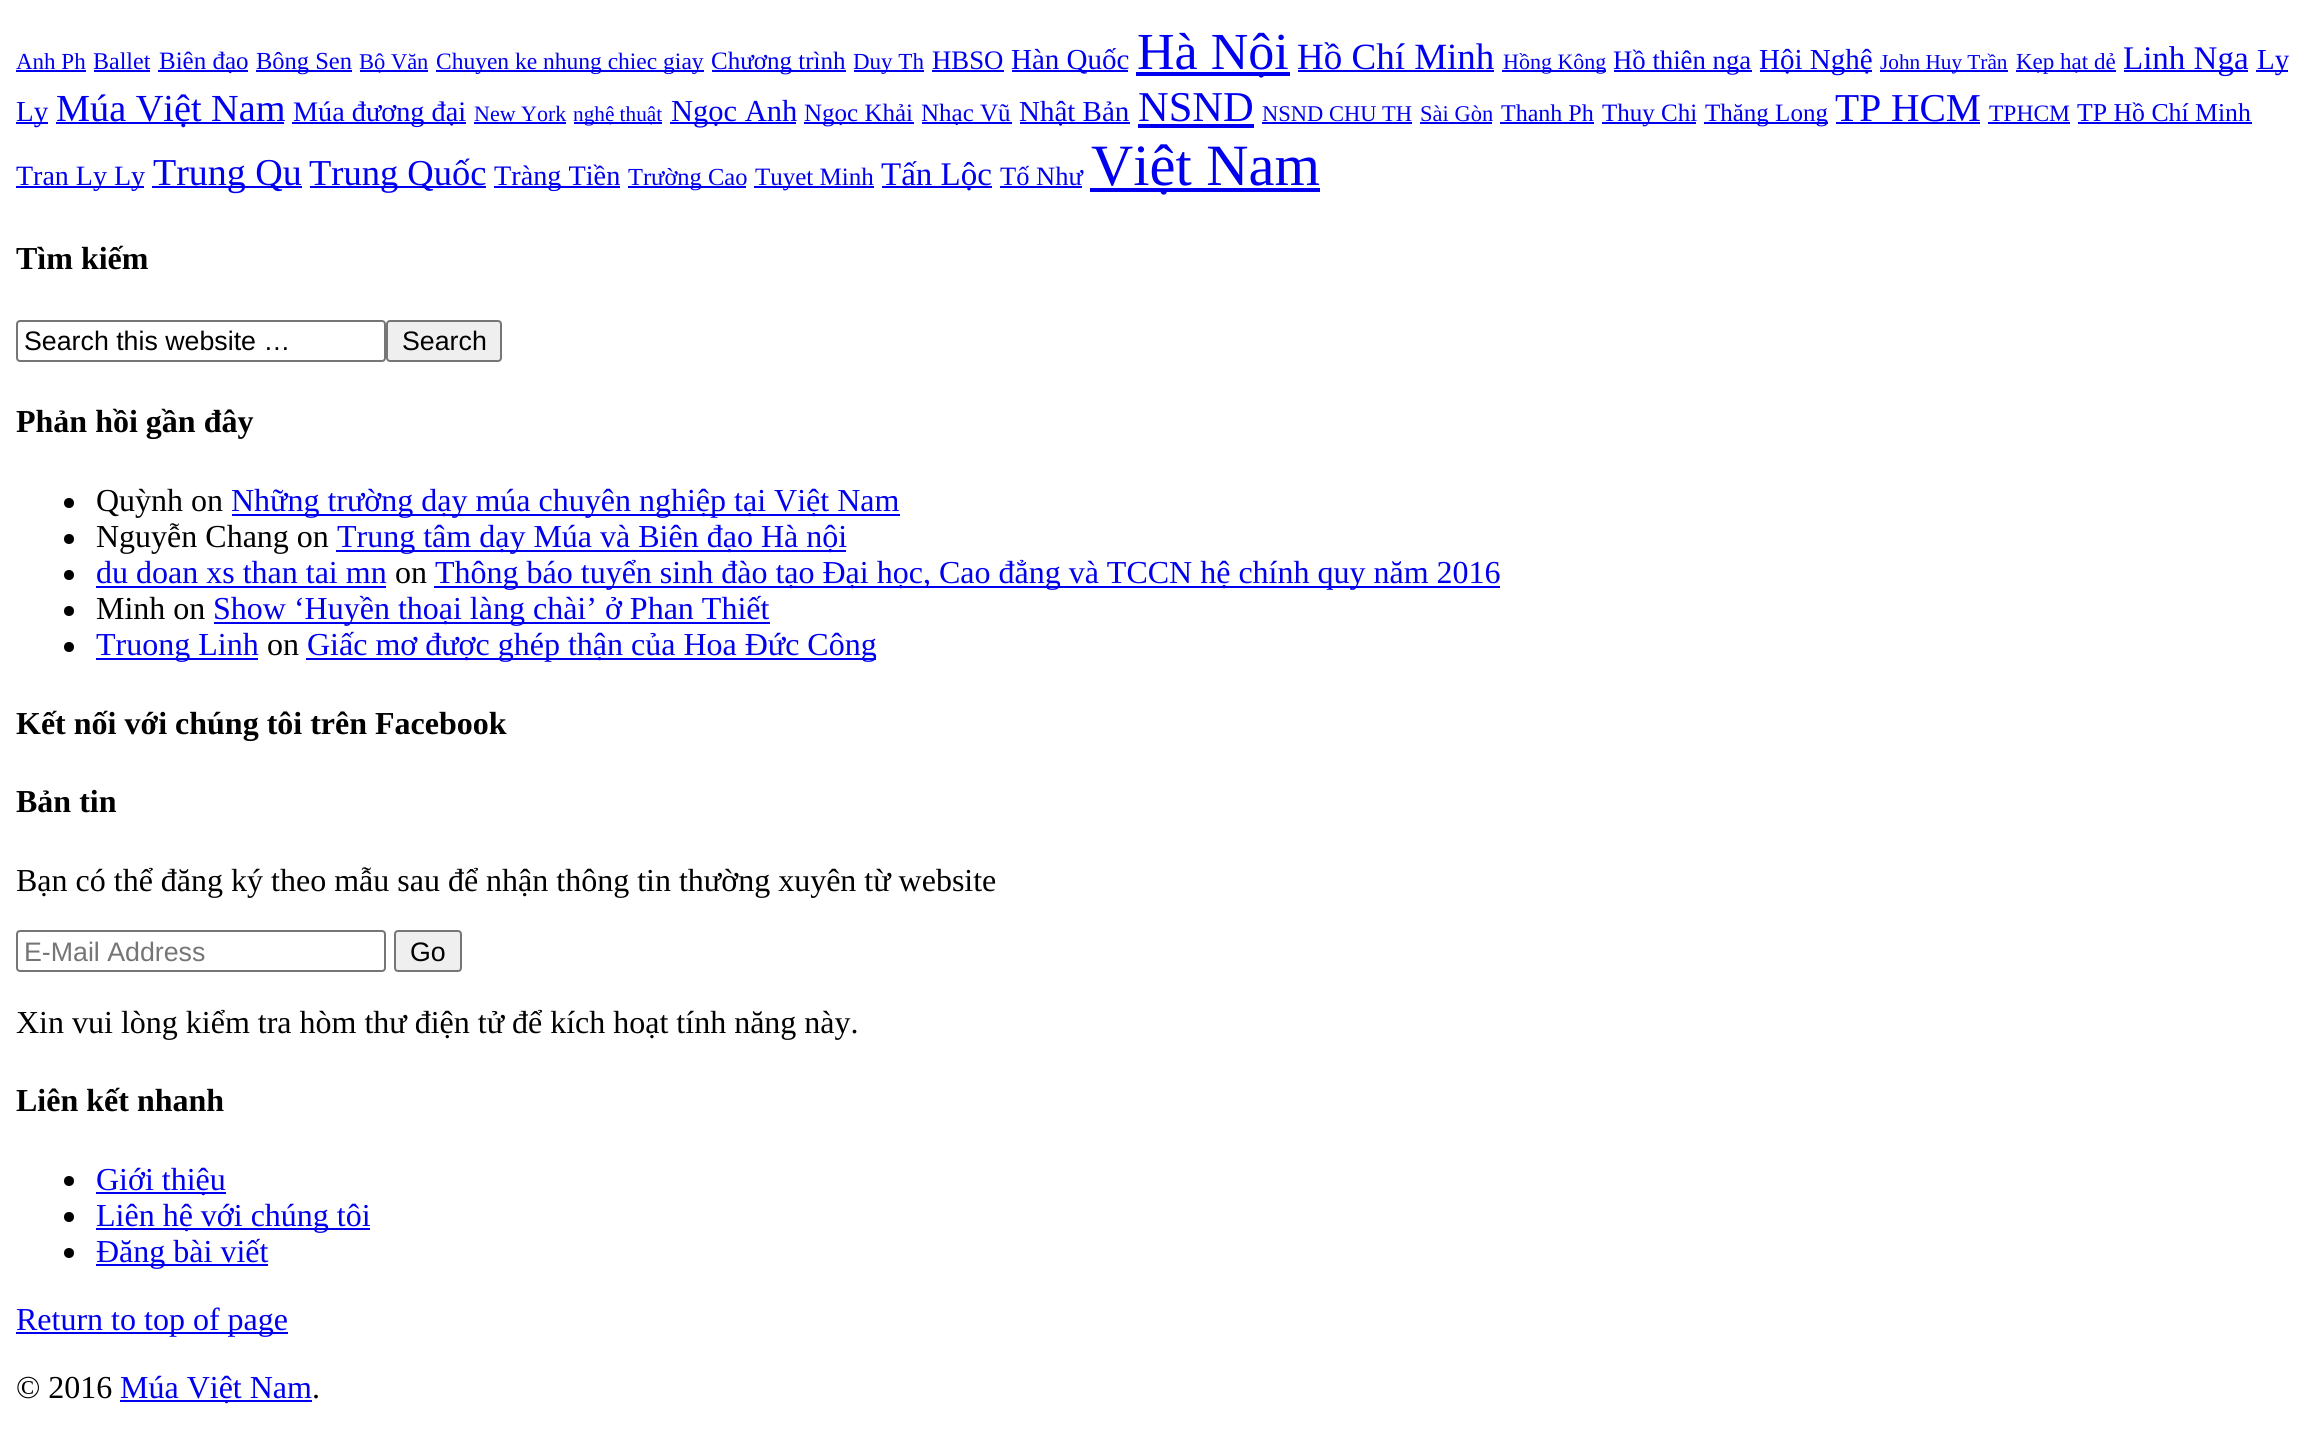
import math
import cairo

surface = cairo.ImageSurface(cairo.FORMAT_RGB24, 2308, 1437)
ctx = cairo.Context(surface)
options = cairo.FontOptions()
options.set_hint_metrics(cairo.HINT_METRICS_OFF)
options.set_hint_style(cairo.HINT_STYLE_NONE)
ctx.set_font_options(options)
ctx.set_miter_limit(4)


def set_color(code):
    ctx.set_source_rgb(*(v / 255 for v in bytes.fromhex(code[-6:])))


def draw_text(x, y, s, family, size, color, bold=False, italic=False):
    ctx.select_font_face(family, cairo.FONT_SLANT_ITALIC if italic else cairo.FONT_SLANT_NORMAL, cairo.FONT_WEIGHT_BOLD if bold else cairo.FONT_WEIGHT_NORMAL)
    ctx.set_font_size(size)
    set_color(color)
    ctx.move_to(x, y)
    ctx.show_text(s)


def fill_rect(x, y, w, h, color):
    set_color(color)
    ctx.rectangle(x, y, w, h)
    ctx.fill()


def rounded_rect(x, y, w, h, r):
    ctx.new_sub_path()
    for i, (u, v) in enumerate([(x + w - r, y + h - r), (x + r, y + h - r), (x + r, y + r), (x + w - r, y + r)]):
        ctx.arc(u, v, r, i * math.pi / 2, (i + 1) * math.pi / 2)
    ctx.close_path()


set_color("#ffffff")
ctx.paint()
draw_text(16, 69, "Anh Ph", "Liberation Serif", 23, "#0000ee")
fill_rect(16, 70, 70, 2, "#0000ee")
draw_text(93, 69, "Ballet", "Liberation Serif", 24, "#0000ee")
fill_rect(94, 70, 56, 2, "#0000ee")
fill_rect(158, 70, 90, 2, "#0000ee")
draw_text(159, 69, "Biên đạo", "Liberation Serif", 25, "#0000ee")
fill_rect(256, 70, 96, 2, "#0000ee")
draw_text(256, 69, "Bông Sen", "Liberation Serif", 24.5, "#0000ee")
fill_rect(360, 70, 68, 2, "#0000ee")
draw_text(359, 69, "Bộ Văn", "Liberation Serif", 22.5, "#0000ee")
fill_rect(436, 70, 268, 2, "#0000ee")
draw_text(436, 69, "Chuyen ke nhung chiec giay", "Liberation Serif", 23.5, "#0000ee")
fill_rect(712, 70, 134, 2, "#0000ee")
draw_text(711, 69, "Chương trình", "Liberation Serif", 25, "#0000ee")
fill_rect(854, 70, 70, 2, "#0000ee")
draw_text(853, 69, "Duy Th", "Liberation Serif", 23, "#0000ee")
draw_text(932, 69, "HBSO", "Liberation Serif", 26.75, "#0000ee")
fill_rect(932, 70, 72, 2, "#0000ee")
fill_rect(1012, 70, 116, 2, "#0000ee")
draw_text(1011, 69, "Hàn Quốc", "Liberation Serif", 29, "#0000ee")
fill_rect(1136, 72, 154, 4, "#0000ee")
draw_text(1137, 69, "Hà Nội", "Liberation Serif", 52, "#0000ee")
draw_text(1297, 69, "Hồ Chí Minh", "Liberation Serif", 37, "#0000ee")
fill_rect(1298, 70, 196, 2, "#0000ee")
fill_rect(1502, 70, 104, 2, "#0000ee")
draw_text(1503, 69, "Hồng Kông", "Liberation Serif", 22, "#0000ee")
fill_rect(1614, 70, 138, 2, "#0000ee")
draw_text(1613, 69, "Hồ thiên nga", "Liberation Serif", 26.75, "#0000ee")
fill_rect(1760, 70, 112, 2, "#0000ee")
draw_text(1759, 69, "Hội Nghệ", "Liberation Serif", 29, "#0000ee")
fill_rect(1880, 70, 128, 2, "#0000ee")
draw_text(1880, 69, "John Huy Trần", "Liberation Serif", 21.25, "#0000ee")
fill_rect(2016, 70, 100, 2, "#0000ee")
draw_text(2016, 69, "Kẹp hạt dẻ", "Liberation Serif", 23, "#0000ee")
fill_rect(2124, 70, 124, 2, "#0000ee")
draw_text(2123, 69, "Linh Nga", "Liberation Serif", 33, "#0000ee")
fill_rect(2256, 70, 32, 2, "#0000ee")
draw_text(2257, 69, "Ly", "Liberation Serif", 29, "#0000ee")
fill_rect(16, 122, 32, 2, "#0000ee")
draw_text(16, 121, "Ly", "Liberation Serif", 29, "#0000ee")
fill_rect(56, 122, 228, 2, "#0000ee")
draw_text(56, 121, "Múa Việt Nam", "Liberation Serif", 38.25, "#0000ee")
fill_rect(292, 122, 174, 2, "#0000ee")
draw_text(293, 121, "Múa đương đại", "Liberation Serif", 28.25, "#0000ee")
draw_text(474, 121, "New York", "Liberation Serif", 22, "#0000ee")
fill_rect(474, 122, 92, 2, "#0000ee")
fill_rect(574, 122, 88, 2, "#0000ee")
draw_text(573, 121, "nghệ thuật", "Liberation Serif", 21.25, "#0000ee")
fill_rect(670, 122, 126, 2, "#0000ee")
draw_text(671, 121, "Ngọc Anh", "Liberation Serif", 30.5, "#0000ee")
fill_rect(804, 122, 110, 2, "#0000ee")
draw_text(804, 121, "Ngọc Khải", "Liberation Serif", 25, "#0000ee")
fill_rect(922, 122, 90, 2, "#0000ee")
draw_text(921, 121, "Nhạc Vũ", "Liberation Serif", 25, "#0000ee")
fill_rect(1020, 122, 110, 2, "#0000ee")
draw_text(1019, 121, "Nhật Bản", "Liberation Serif", 29, "#0000ee")
draw_text(1138, 121, "NSND", "Liberation Serif", 42.5, "#0000ee")
fill_rect(1138, 124, 116, 4, "#0000ee")
draw_text(1262, 121, "NSND CHU TH", "Liberation Serif", 22.5, "#0000ee")
fill_rect(1262, 122, 150, 2, "#0000ee")
draw_text(1420, 121, "Sài Gòn", "Liberation Serif", 22.5, "#0000ee")
fill_rect(1420, 122, 72, 2, "#0000ee")
draw_text(1501, 121, "Thanh Ph", "Liberation Serif", 24, "#0000ee")
fill_rect(1500, 122, 94, 2, "#0000ee")
fill_rect(1602, 122, 94, 2, "#0000ee")
draw_text(1602, 121, "Thuy Chi", "Liberation Serif", 25, "#0000ee")
fill_rect(1704, 122, 124, 2, "#0000ee")
draw_text(1705, 121, "Thăng Long", "Liberation Serif", 25, "#0000ee")
draw_text(1835, 121, "TP HCM", "Liberation Serif", 39.5, "#0000ee")
fill_rect(1836, 122, 144, 2, "#0000ee")
draw_text(1989, 121, "TPHCM", "Liberation Serif", 23.5, "#0000ee")
fill_rect(1988, 122, 82, 2, "#0000ee")
draw_text(2077, 121, "TP Hồ Chí Minh", "Liberation Serif", 25.75, "#0000ee")
fill_rect(2078, 122, 174, 2, "#0000ee")
fill_rect(16, 186, 128, 2, "#0000ee")
draw_text(16, 185, "Tran Ly Ly", "Liberation Serif", 28, "#0000ee")
fill_rect(152, 186, 150, 2, "#0000ee")
draw_text(153, 185, "Trung Qu", "Liberation Serif", 38, "#0000ee")
fill_rect(310, 186, 176, 2, "#0000ee")
draw_text(309, 185, "Trung Quốc", "Liberation Serif", 36.5, "#0000ee")
fill_rect(494, 186, 126, 2, "#0000ee")
draw_text(494, 185, "Tràng Tiền", "Liberation Serif", 28.25, "#0000ee")
fill_rect(628, 186, 118, 2, "#0000ee")
draw_text(628, 185, "Trường Cao", "Liberation Serif", 24.5, "#0000ee")
fill_rect(754, 186, 120, 2, "#0000ee")
draw_text(755, 185, "Tuyet Minh", "Liberation Serif", 25, "#0000ee")
fill_rect(882, 186, 110, 2, "#0000ee")
draw_text(881, 185, "Tấn Lộc", "Liberation Serif", 33, "#0000ee")
draw_text(1000, 185, "Tố Như", "Liberation Serif", 26.5, "#0000ee")
fill_rect(1000, 186, 82, 2, "#0000ee")
fill_rect(1090, 188, 230, 4, "#0000ee")
draw_text(1091, 185, "Việt Nam", "Liberation Serif", 58.5, "#0000ee")
draw_text(16, 269, "Tìm kiếm", "Liberation Serif", 32, "#000000", bold=True)
rounded_rect(17, 321, 368, 40, 3)
set_color("#767676")
ctx.stroke()
draw_text(24, 350, "Search this website …", "Liberation Sans", 26.75, "#000000")
set_color("#efefef")
rounded_rect(387, 321, 114, 40, 3)
ctx.fill_preserve()
set_color("#767676")
ctx.stroke()
draw_text(402, 350, "Search", "Liberation Sans", 26.75, "#000000")
draw_text(16, 432, "Phản hồi gần đây", "Liberation Serif", 32, "#000000", bold=True)
ctx.new_path()
ctx.arc(69, 503, 5, 0, 2 * math.pi)
ctx.fill()
draw_text(96, 511, "Quỳnh on", "Liberation Serif", 32, "#000000")
fill_rect(232, 514, 668, 2, "#0000ee")
draw_text(231, 511, "Những trường dạy múa chuyên nghiệp tại Việt Nam", "Liberation Serif", 32, "#0000ee")
set_color("#000000")
ctx.new_path()
ctx.arc(69, 539, 5, 0, 2 * math.pi)
ctx.fill()
draw_text(96, 547, "Nguyễn Chang on", "Liberation Serif", 32, "#000000")
fill_rect(336, 550, 510, 2, "#0000ee")
draw_text(337, 547, "Trung tâm dạy Múa và Biên đạo Hà nội", "Liberation Serif", 32, "#0000ee")
set_color("#000000")
ctx.new_path()
ctx.arc(69, 575, 5, 0, 2 * math.pi)
ctx.fill()
draw_text(96, 583, "du doan xs than tai mn", "Liberation Serif", 32, "#0000ee")
fill_rect(96, 586, 290, 2, "#0000ee")
draw_text(395, 583, "on", "Liberation Serif", 32, "#000000")
fill_rect(434, 586, 1066, 2, "#0000ee")
draw_text(435, 583, "Thông báo tuyển sinh đào tạo Đại học, Cao đẳng và TCCN hệ chính quy năm 2016", "Liberation Serif", 32, "#0000ee")
set_color("#000000")
ctx.new_path()
ctx.arc(69, 611, 5, 0, 2 * math.pi)
ctx.fill()
draw_text(96, 619, "Minh on", "Liberation Serif", 32, "#000000")
fill_rect(214, 622, 556, 2, "#0000ee")
draw_text(213, 619, "Show ‘Huyền thoại làng chài’ ở Phan Thiết", "Liberation Serif", 32, "#0000ee")
set_color("#000000")
ctx.new_path()
ctx.arc(69, 647, 5, 0, 2 * math.pi)
ctx.fill()
fill_rect(96, 658, 162, 2, "#0000ee")
draw_text(96, 655, "Truong Linh", "Liberation Serif", 32, "#0000ee")
draw_text(267, 655, "on", "Liberation Serif", 32, "#000000")
fill_rect(306, 658, 570, 2, "#0000ee")
draw_text(307, 655, "Giấc mơ được ghép thận của Hoa Đức Công", "Liberation Serif", 32, "#0000ee")
draw_text(16, 734, "Kết nối với chúng tôi trên Facebook", "Liberation Serif", 32, "#000000", bold=True)
draw_text(16, 812, "Bản tin", "Liberation Serif", 32, "#000000", bold=True)
draw_text(16, 891, "Bạn có thể đăng ký theo mẫu sau để nhận thông tin thường xuyên từ website", "Liberation Serif", 32, "#000000")
rounded_rect(17, 931, 368, 40, 3)
set_color("#767676")
ctx.stroke()
draw_text(24, 961, "E-Mail Address", "Liberation Sans", 26.75, "#757575")
set_color("#efefef")
rounded_rect(395, 931, 66, 40, 3)
ctx.fill_preserve()
set_color("#767676")
ctx.stroke()
draw_text(410, 961, "Go", "Liberation Sans", 26.75, "#000000")
draw_text(16, 1033, "Xin vui lòng kiểm tra hòm thư điện tử để kích hoạt tính năng này.", "Liberation Serif", 32, "#000000")
draw_text(16, 1111, "Liên kết nhanh", "Liberation Serif", 32, "#000000", bold=True)
ctx.new_path()
ctx.arc(69, 1181, 5, 0, 2 * math.pi)
ctx.fill()
fill_rect(96, 1192, 130, 2, "#0000ee")
draw_text(96, 1190, "Giới thiệu", "Liberation Serif", 32, "#0000ee")
set_color("#000000")
ctx.new_path()
ctx.arc(69, 1217, 5, 0, 2 * math.pi)
ctx.fill()
fill_rect(96, 1228, 274, 2, "#0000ee")
draw_text(96, 1226, "Liên hệ với chúng tôi", "Liberation Serif", 32, "#0000ee")
set_color("#000000")
ctx.new_path()
ctx.arc(69, 1253, 5, 0, 2 * math.pi)
ctx.fill()
fill_rect(96, 1264, 172, 2, "#0000ee")
draw_text(96, 1262, "Đăng bài viết", "Liberation Serif", 32, "#0000ee")
fill_rect(16, 1332, 272, 2, "#0000ee")
draw_text(16, 1330, "Return to top of page", "Liberation Serif", 32, "#0000ee")
draw_text(16, 1398, "© 2016", "Liberation Serif", 32, "#000000")
fill_rect(120, 1400, 192, 2, "#0000ee")
draw_text(120, 1398, "Múa Việt Nam", "Liberation Serif", 32, "#0000ee")
draw_text(312, 1398, ".", "Liberation Serif", 32, "#000000")
surface.write_to_png("output.png")
